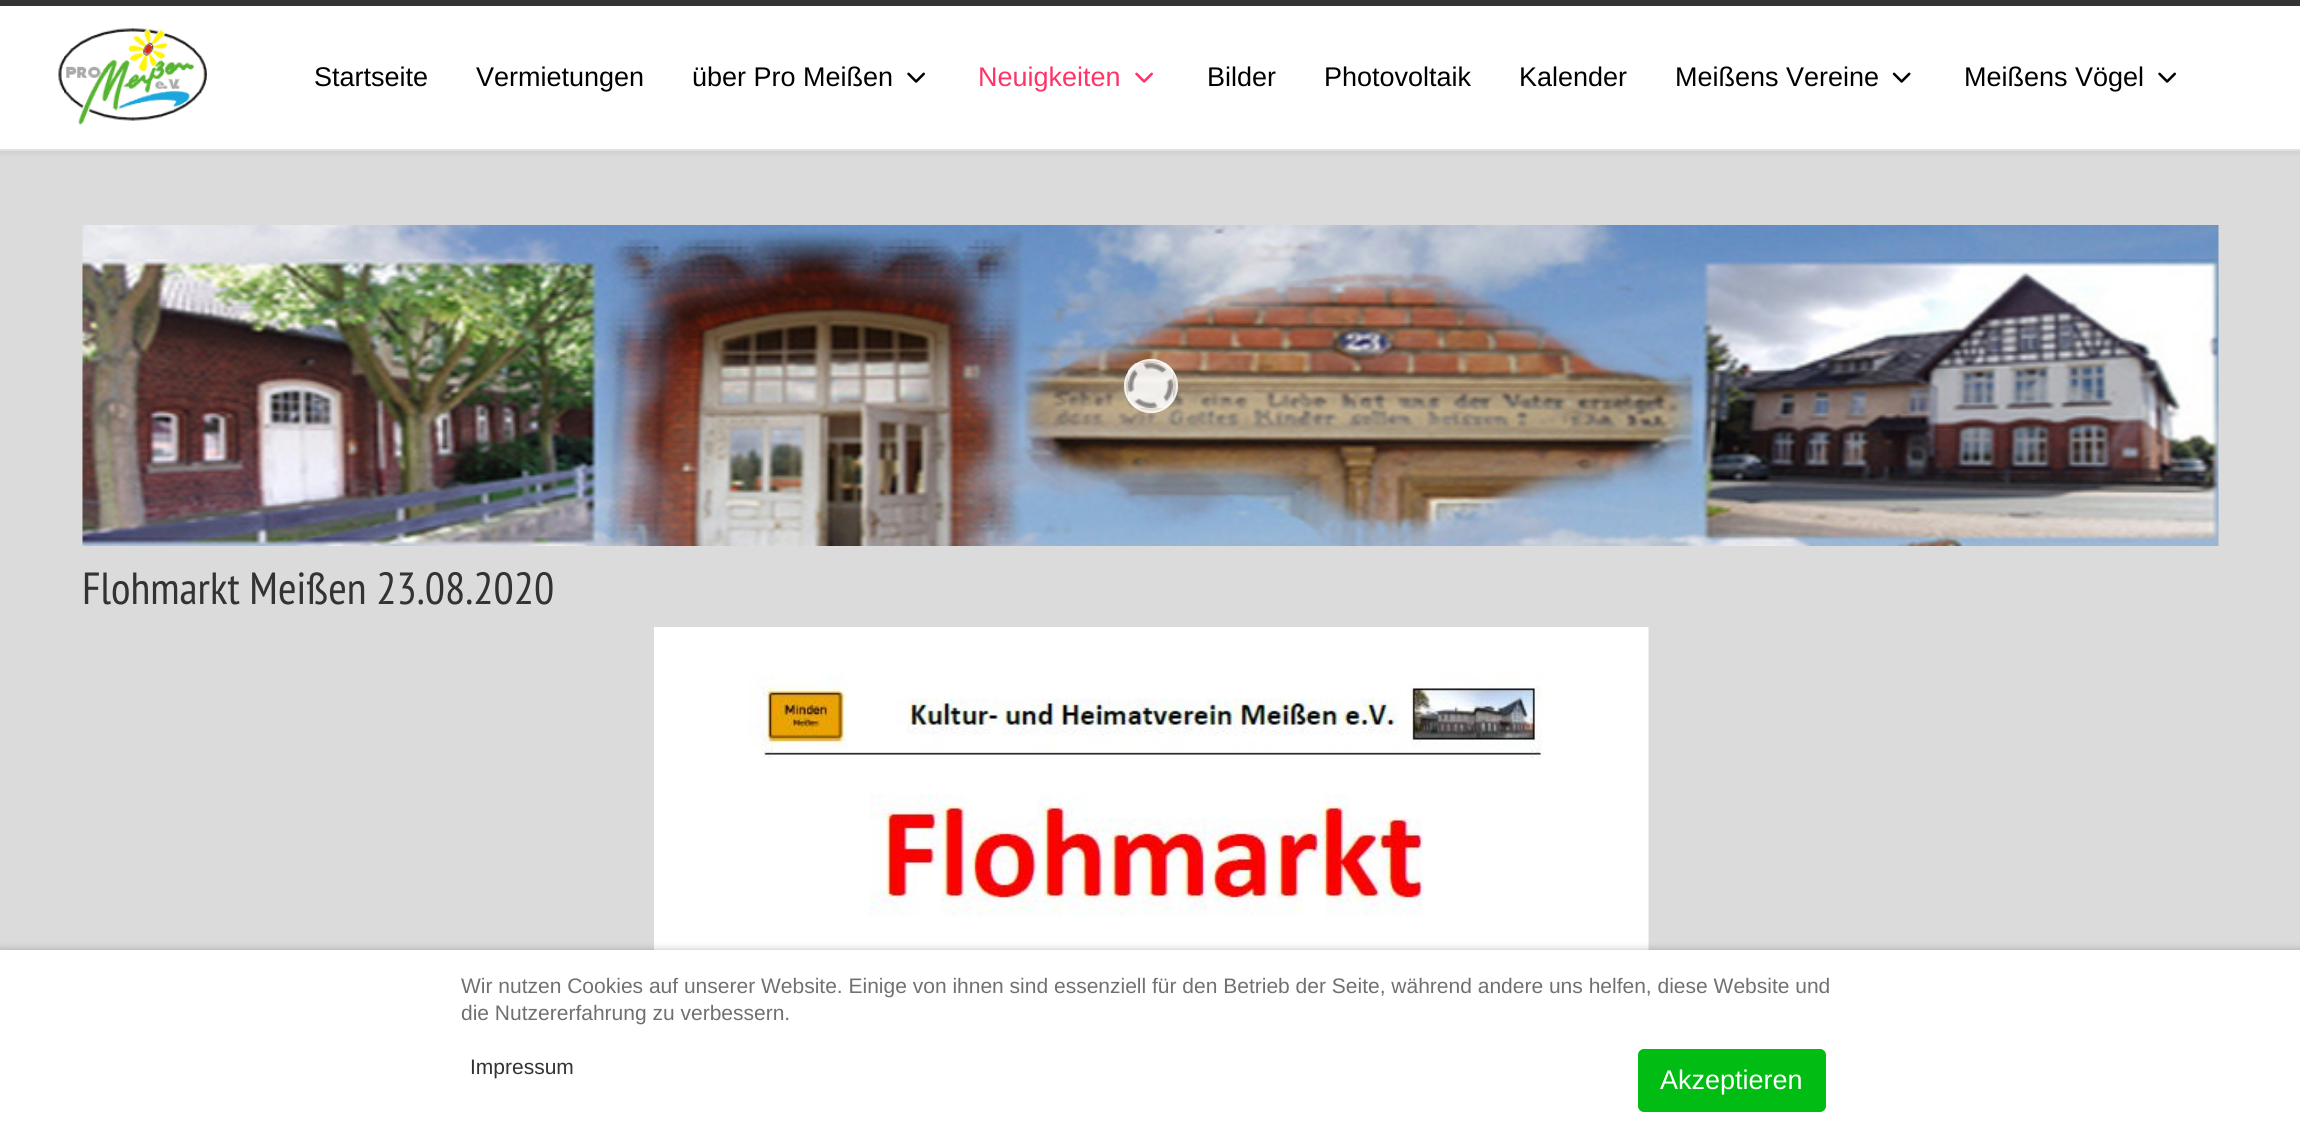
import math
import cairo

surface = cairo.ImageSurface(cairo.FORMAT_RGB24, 2300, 1133)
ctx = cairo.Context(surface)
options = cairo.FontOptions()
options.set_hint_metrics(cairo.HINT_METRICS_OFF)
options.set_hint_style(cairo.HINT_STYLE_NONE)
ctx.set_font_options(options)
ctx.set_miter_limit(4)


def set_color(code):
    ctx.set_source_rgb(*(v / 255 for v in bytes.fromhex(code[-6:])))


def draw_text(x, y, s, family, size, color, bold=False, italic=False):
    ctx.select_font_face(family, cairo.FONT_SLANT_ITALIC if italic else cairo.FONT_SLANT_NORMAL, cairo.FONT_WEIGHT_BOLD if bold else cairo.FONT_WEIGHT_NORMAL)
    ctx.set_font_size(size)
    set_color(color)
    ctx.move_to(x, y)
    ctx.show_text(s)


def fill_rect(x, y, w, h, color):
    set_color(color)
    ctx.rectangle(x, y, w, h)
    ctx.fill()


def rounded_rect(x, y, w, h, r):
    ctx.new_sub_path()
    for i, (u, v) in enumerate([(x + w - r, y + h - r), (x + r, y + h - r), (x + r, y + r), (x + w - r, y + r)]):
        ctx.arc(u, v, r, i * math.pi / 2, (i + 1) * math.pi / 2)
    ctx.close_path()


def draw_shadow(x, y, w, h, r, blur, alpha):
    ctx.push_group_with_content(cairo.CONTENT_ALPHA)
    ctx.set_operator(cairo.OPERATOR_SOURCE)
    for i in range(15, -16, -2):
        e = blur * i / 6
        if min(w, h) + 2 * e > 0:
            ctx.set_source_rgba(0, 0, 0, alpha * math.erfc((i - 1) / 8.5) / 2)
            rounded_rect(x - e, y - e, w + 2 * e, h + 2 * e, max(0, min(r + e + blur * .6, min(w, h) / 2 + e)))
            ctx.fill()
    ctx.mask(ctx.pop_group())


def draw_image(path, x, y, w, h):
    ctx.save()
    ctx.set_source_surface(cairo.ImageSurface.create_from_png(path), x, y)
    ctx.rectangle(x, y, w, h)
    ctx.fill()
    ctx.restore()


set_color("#dbdbdb")
ctx.paint()
fill_rect(0, 0, 2300, 6, "#333333")
set_color("#000000")
draw_shadow(0, 9, 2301, 144, 0, 3, 0.07)
fill_rect(0, 6, 2300, 143, "#ffffff")
fill_rect(0, 149, 2300, 2, "#dee2e6")
draw_image("assets/img1.png", 58, 28, 149, 97)
draw_text(314, 86, "Startseite", "Liberation Sans", 27, "#000000")
draw_text(476, 86, "Vermietungen", "Liberation Sans", 27, "#000000")
draw_text(692, 86, "über Pro Meißen", "Liberation Sans", 27, "#000000")
draw_image("assets/img2.png", 907, 72, 18, 11)
draw_text(978, 86, "Neuigkeiten", "Liberation Sans", 27, "#ff3366")
draw_image("assets/img3.png", 1135, 72, 18, 11)
draw_text(1207, 86, "Bilder", "Liberation Sans", 27, "#000000")
draw_text(1324, 86, "Photovoltaik", "Liberation Sans", 27, "#000000")
draw_text(1519, 86, "Kalender", "Liberation Sans", 27, "#000000")
draw_text(1675, 86, "Meißens Vereine", "Liberation Sans", 27, "#000000")
draw_image("assets/img4.png", 1892, 72, 19, 11)
draw_text(1964, 86, "Meißens Vögel", "Liberation Sans", 27, "#000000")
draw_image("assets/img2.png", 2158, 72, 18, 11)
draw_image("assets/img5.png", 82, 225, 2137, 321)
ctx.set_source_rgba(1, 1, 1, 0.61)
ctx.arc(1151, 386, 27, 0, 2 * math.pi)
ctx.fill()
draw_image("assets/img6.png", 1128, 363, 45, 45)
ctx.arc(1151, 386, 26, 0, 2 * math.pi)
ctx.set_source_rgba(1, 1, 1, 0.68)
ctx.stroke()
draw_text(82, 604, "Flohmarkt Meißen 23.08.2020", "PT Sans Narrow", 45, "#333333")
draw_image("assets/img7.png", 654, 627, 995, 323)
set_color("#000000")
draw_shadow(0, 950, 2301, 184, 0, 4, 0.25)
fill_rect(0, 950, 2300, 183, "#ffffff")
draw_text(461, 993, "Wir nutzen Cookies auf unserer Website. Einige von ihnen sind essenziell für den Betrieb der Seite, während andere uns helfen, diese Website und", "Liberation Sans", 21, "#707070")
draw_text(461, 1020, "die Nutzererfahrung zu verbessern.", "Liberation Sans", 21, "#707070")
draw_text(470, 1074, "Impressum", "Liberation Sans", 21, "#333333")
set_color("#00bc13")
rounded_rect(1638, 1049, 188, 63, 6)
ctx.fill()
draw_text(1660, 1089, "Akzeptieren", "Liberation Sans", 27, "#ffffff")
surface.write_to_png("output.png")
